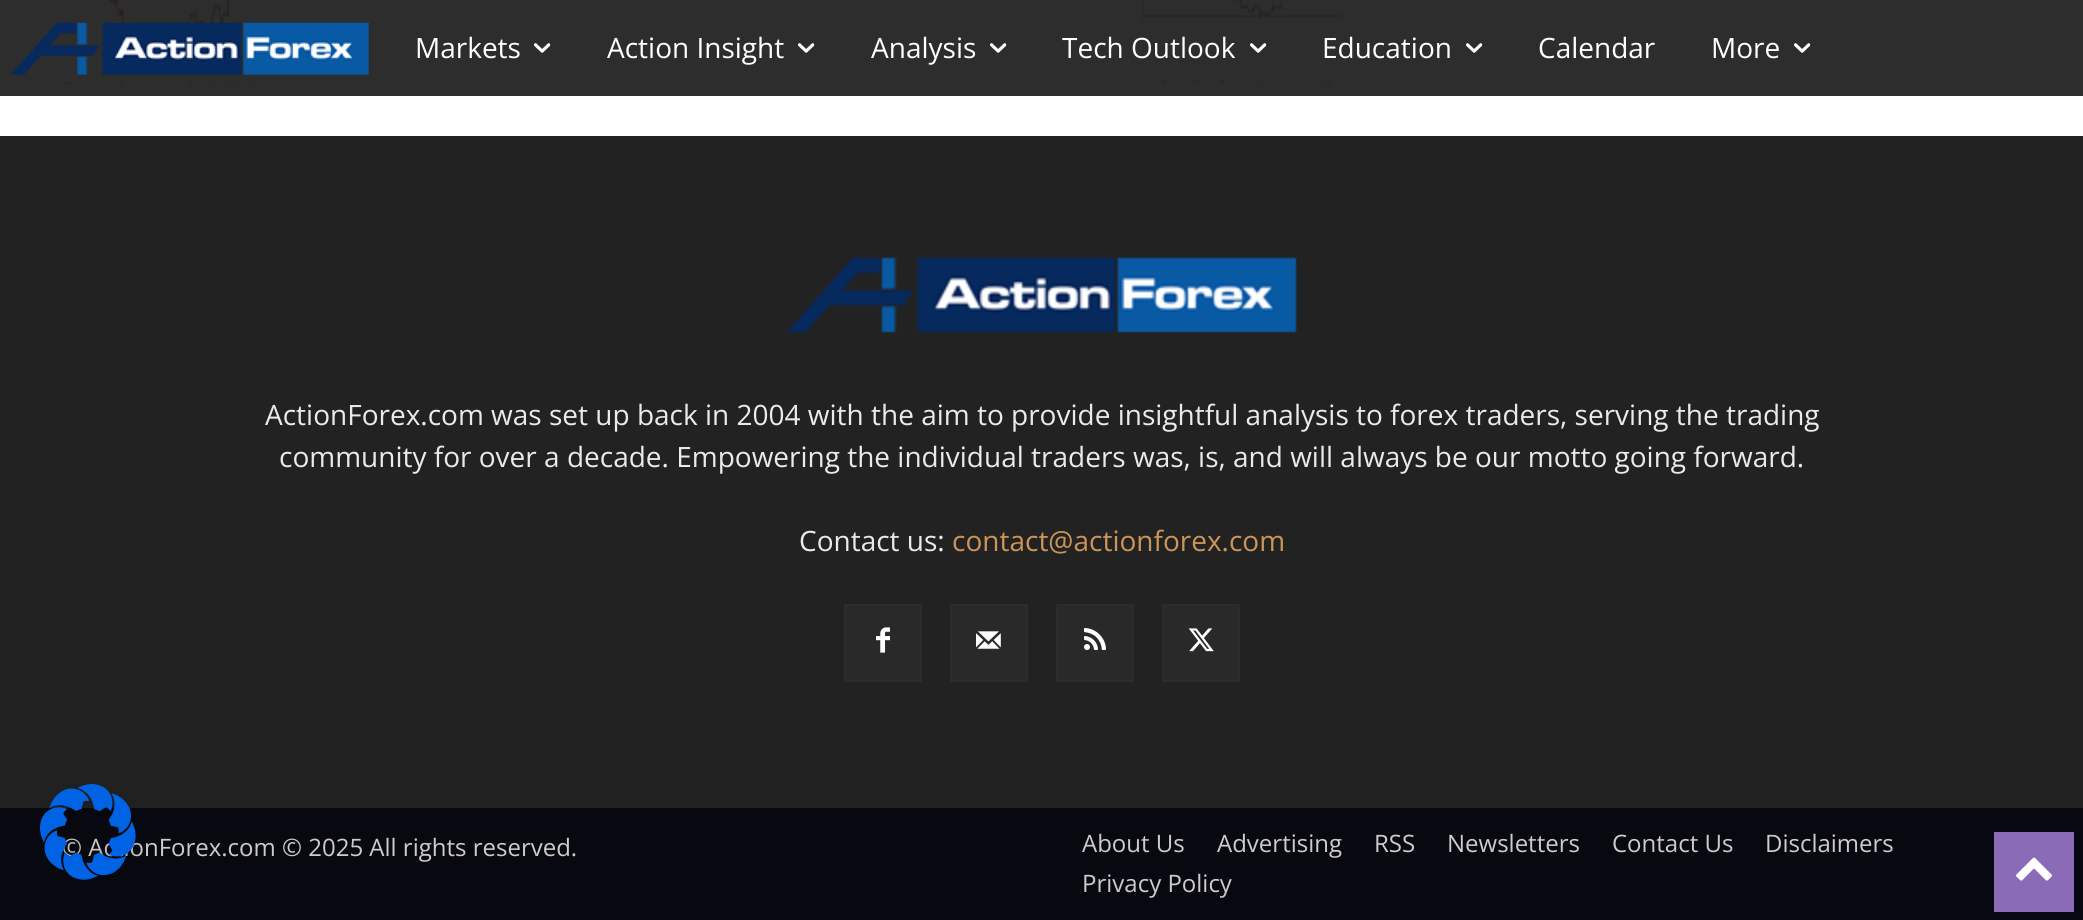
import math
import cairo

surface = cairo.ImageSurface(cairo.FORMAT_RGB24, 2083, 920)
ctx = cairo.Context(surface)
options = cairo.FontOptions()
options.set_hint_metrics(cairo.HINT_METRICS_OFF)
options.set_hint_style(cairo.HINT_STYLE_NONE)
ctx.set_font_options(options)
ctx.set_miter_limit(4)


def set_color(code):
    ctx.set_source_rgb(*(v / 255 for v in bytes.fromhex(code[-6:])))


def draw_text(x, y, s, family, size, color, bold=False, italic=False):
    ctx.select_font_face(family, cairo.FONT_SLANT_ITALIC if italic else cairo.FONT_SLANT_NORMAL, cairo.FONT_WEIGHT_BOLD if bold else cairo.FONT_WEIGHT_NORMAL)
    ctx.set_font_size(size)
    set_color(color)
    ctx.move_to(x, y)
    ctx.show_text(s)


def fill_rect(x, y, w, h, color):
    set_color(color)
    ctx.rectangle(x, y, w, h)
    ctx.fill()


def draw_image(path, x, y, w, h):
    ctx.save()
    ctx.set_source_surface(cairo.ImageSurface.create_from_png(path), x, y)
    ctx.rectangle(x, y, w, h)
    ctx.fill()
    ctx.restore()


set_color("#ffffff")
ctx.paint()
fill_rect(0, 0, 2083, 96, "#2d2d2d")
draw_image("assets/img1.png", 62, 0, 200, 85)
draw_image("assets/img2.png", 1142, 0, 200, 85)
draw_image("assets/img3.png", 11, 22, 358, 53)
draw_text(415, 58, "Markets", "Open Sans", 28, "#ffffff")
draw_image("assets/img4.png", 534, 43, 17, 10)
draw_text(607, 58, "Action Insight", "Open Sans", 28, "#ffffff")
draw_image("assets/img4.png", 798, 43, 17, 10)
draw_text(871, 58, "Analysis", "Open Sans", 28, "#ffffff")
draw_image("assets/img4.png", 990, 43, 17, 10)
draw_text(1062, 58, "Tech Outlook", "Open Sans", 28, "#ffffff")
draw_image("assets/img4.png", 1250, 43, 17, 10)
draw_text(1322, 58, "Education", "Open Sans", 28, "#ffffff")
draw_image("assets/img4.png", 1466, 43, 17, 10)
draw_text(1538, 58, "Calendar", "Open Sans", 28, "#ffffff")
draw_text(1711, 58, "More", "Open Sans", 28, "#ffffff")
draw_image("assets/img4.png", 1794, 43, 17, 10)
fill_rect(0, 136, 2083, 672, "#222222")
draw_image("assets/img5.png", 787, 257, 510, 76)
draw_text(265, 425, "ActionForex.com was set up back in 2004 with the aim to provide insightful analysis to forex traders, serving the trading", "Open Sans", 28, "#eaeaea")
draw_text(279, 467, "community for over a decade. Empowering the individual traders was, is, and will always be our motto going forward.", "Open Sans", 28, "#eaeaea")
draw_text(799, 551, "Contact us:", "Open Sans", 28, "#eaeaea")
draw_text(952, 551, "contact@actionforex.com", "Open Sans", 28, "#cb9558")
set_color("#292929")
ctx.rectangle(845, 605, 76, 76)
ctx.fill_preserve()
set_color("#2e2c2a")
ctx.stroke()
draw_image("assets/img6.png", 876, 627, 14, 26)
set_color("#292929")
ctx.rectangle(951, 605, 76, 76)
ctx.fill_preserve()
set_color("#2e2c2a")
ctx.stroke()
draw_image("assets/img7.png", 976, 631, 25, 18)
set_color("#292929")
ctx.rectangle(1057, 605, 76, 76)
ctx.fill_preserve()
set_color("#2e2c2a")
ctx.stroke()
draw_image("assets/img8.png", 1084, 628, 22, 22)
set_color("#292929")
ctx.rectangle(1163, 605, 76, 76)
ctx.fill_preserve()
set_color("#2e2c2a")
ctx.stroke()
draw_image("assets/img9.png", 1188, 628, 26, 24)
fill_rect(0, 808, 2083, 112, "#080810")
draw_text(62, 856, "© ActionForex.com © 2025 All rights reserved.", "Open Sans", 24, "#cccccc")
draw_text(1082, 852, "About Us", "Open Sans", 24, "#cccccc")
draw_text(1217, 852, "Advertising", "Open Sans", 24, "#cccccc")
draw_text(1374, 852, "RSS", "Open Sans", 24, "#cccccc")
draw_text(1447, 852, "Newsletters", "Open Sans", 24, "#cccccc")
draw_text(1612, 852, "Contact Us", "Open Sans", 24, "#cccccc")
draw_text(1765, 852, "Disclaimers", "Open Sans", 24, "#cccccc")
draw_text(1082, 892, "Privacy Policy", "Open Sans", 24, "#cccccc")
draw_image("assets/img10.png", 40, 784, 102, 96)
fill_rect(1994, 832, 80, 80, "#8a6bb7")
draw_image("assets/img11.png", 2016, 857, 36, 24)
surface.write_to_png("output.png")
